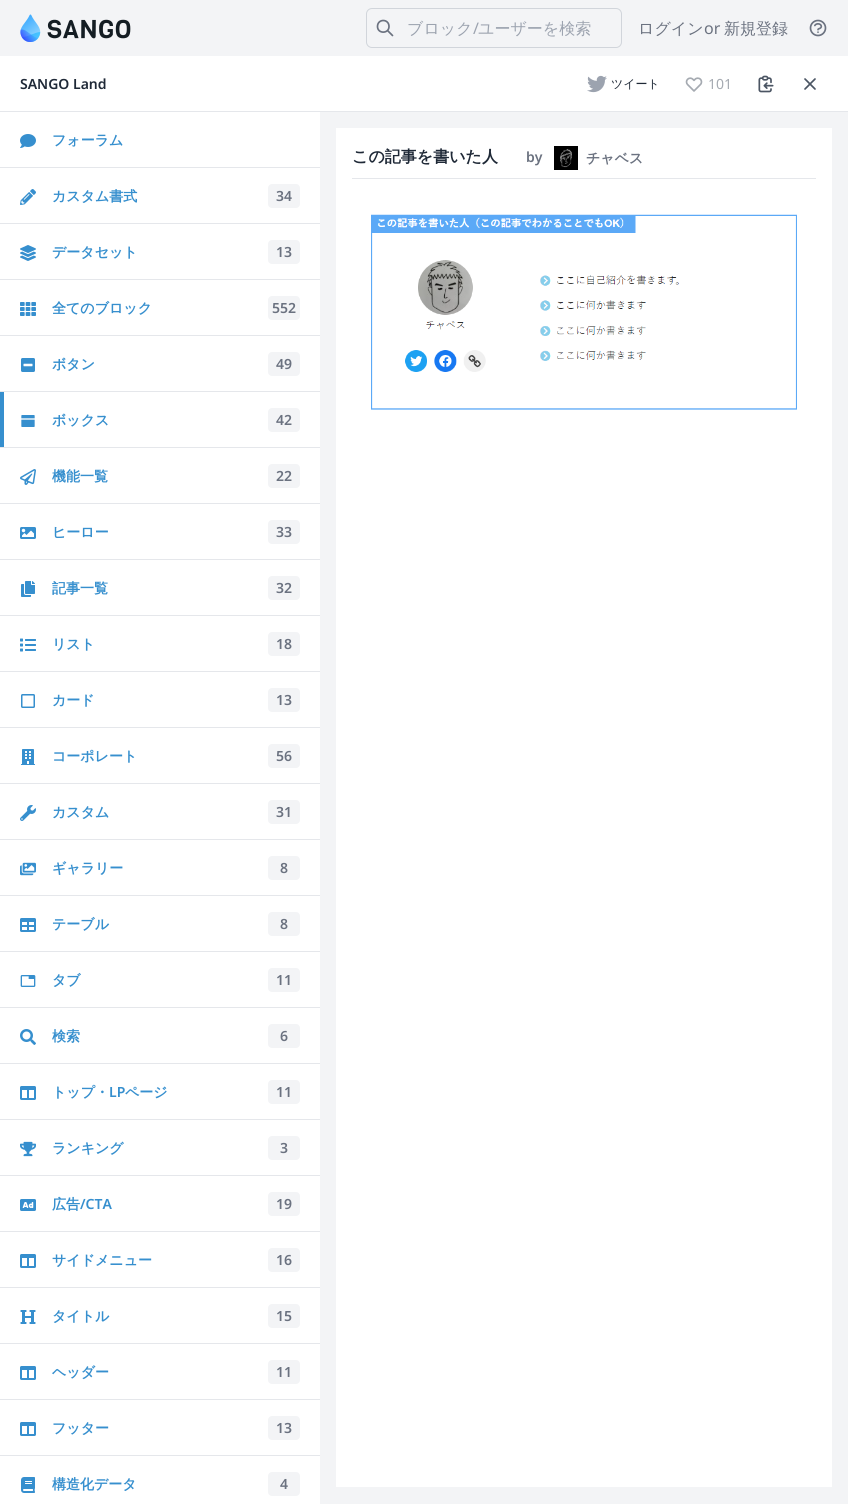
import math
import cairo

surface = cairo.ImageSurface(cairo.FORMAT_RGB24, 848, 1504)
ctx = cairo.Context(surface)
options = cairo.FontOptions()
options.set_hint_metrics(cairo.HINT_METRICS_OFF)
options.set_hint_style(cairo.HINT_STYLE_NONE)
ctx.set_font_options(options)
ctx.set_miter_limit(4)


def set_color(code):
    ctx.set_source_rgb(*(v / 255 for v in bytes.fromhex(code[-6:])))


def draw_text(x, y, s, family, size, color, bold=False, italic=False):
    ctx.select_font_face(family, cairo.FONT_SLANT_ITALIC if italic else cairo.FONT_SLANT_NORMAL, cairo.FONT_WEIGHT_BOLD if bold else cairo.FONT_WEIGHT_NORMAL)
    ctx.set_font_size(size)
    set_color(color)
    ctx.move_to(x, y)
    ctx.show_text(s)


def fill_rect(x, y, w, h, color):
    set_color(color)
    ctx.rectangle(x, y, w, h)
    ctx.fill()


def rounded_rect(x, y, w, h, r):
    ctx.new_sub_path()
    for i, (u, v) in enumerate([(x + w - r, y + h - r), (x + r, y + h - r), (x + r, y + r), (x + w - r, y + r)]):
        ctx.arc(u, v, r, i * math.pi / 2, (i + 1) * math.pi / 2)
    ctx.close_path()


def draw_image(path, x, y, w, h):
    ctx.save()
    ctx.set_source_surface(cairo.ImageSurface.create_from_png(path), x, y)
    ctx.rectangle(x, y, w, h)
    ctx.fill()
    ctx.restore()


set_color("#f3f4f6")
ctx.paint()
draw_image("assets/img1.png", 20, 14, 111, 28)
rounded_rect(366.5, 8.5, 255, 39, 5.5)
set_color("#d1d5db")
ctx.set_line_width(1)
ctx.stroke()
ctx.new_path()
ctx.move_to(392.5, 35.5)
ctx.line_to(387.5, 30.5)
ctx.move_to(389, 26.5)
ctx.curve_to(389, 34, 377.5, 34, 377.5, 26.5)
ctx.curve_to(377.5, 18.5, 389, 18.5, 389, 26.5)
ctx.close_path()
set_color("#6b7280")
ctx.set_line_width(1.7)
ctx.set_line_cap(cairo.LINE_CAP_ROUND)
ctx.set_line_join(cairo.LINE_JOIN_ROUND)
ctx.stroke()
draw_text(407, 34, "ブロック", "WenQuanYi Zen Hei Medium", 16, "#9ca3af")
draw_text(473, 34, "/", "Noto Sans", 16, "#9ca3af")
draw_text(478, 34, "ユーザーを検索", "WenQuanYi Zen Hei Medium", 16, "#9ca3af")
draw_text(638, 34, "ログイン", "WenQuanYi Zen Hei Medium", 16, "#6b7280")
draw_text(704, 34, "or", "Noto Sans", 16, "#6b7280")
draw_text(724, 34, "新規登録", "WenQuanYi Zen Hei Medium", 16, "#6b7280")
draw_image("assets/img2.png", 809, 19, 18, 18)
fill_rect(0, 56, 320, 1448, "#ffffff")
fill_rect(0, 111, 320, 1, "#e5e7eb")
draw_text(20, 89, "SANGO Land", "Noto Sans SemiBold", 14, "#1f2937")
fill_rect(0, 167, 320, 1, "#e5e7eb")
draw_image("assets/img3.png", 20, 134, 16, 14)
draw_text(52, 145, "フォーラム", "WenQuanYi Zen Hei", 14, "#368fce", bold=True)
fill_rect(0, 223, 320, 1, "#e5e7eb")
draw_image("assets/img4.png", 20, 189, 16, 16)
draw_text(52, 201, "カスタム書式", "WenQuanYi Zen Hei", 14, "#368fce", bold=True)
set_color("#f3f4f6")
rounded_rect(268, 184, 32, 24, 4)
ctx.fill()
draw_text(276, 201, "34", "Noto Sans SemiBold", 14, "#6b7280")
fill_rect(0, 279, 320, 1, "#e5e7eb")
draw_image("assets/img5.png", 20, 245, 16, 16)
draw_text(52, 257, "データセット", "WenQuanYi Zen Hei", 14, "#368fce", bold=True)
set_color("#f3f4f6")
rounded_rect(268, 240, 32, 24, 4)
ctx.fill()
draw_text(276, 257, "13", "Noto Sans SemiBold", 14, "#6b7280")
fill_rect(0, 335, 320, 1, "#e5e7eb")
draw_image("assets/img6.png", 20, 302, 16, 14)
draw_text(52, 313, "全てのブロック", "WenQuanYi Zen Hei", 14, "#368fce", bold=True)
set_color("#f3f4f6")
rounded_rect(268, 296, 32, 24, 4)
ctx.fill()
draw_text(272, 313, "552", "Noto Sans SemiBold", 14, "#6b7280")
fill_rect(0, 391, 320, 1, "#e5e7eb")
draw_image("assets/img7.png", 21, 358, 14, 14)
draw_text(52, 369, "ボタン", "WenQuanYi Zen Hei", 14, "#368fce", bold=True)
set_color("#f3f4f6")
rounded_rect(268, 352, 32, 24, 4)
ctx.fill()
draw_text(276, 369, "49", "Noto Sans SemiBold", 14, "#6b7280")
fill_rect(0, 447, 320, 1, "#e5e7eb")
fill_rect(0, 392, 4, 55, "#368fce")
draw_image("assets/img8.png", 21, 415, 14, 12)
draw_text(52, 425, "ボックス", "WenQuanYi Zen Hei", 14, "#368fce", bold=True)
set_color("#f3f4f6")
rounded_rect(268, 408, 32, 24, 4)
ctx.fill()
draw_text(276, 425, "42", "Noto Sans SemiBold", 14, "#6b7280")
fill_rect(0, 503, 320, 1, "#e5e7eb")
draw_image("assets/img9.png", 20, 469, 16, 16)
draw_text(52, 481, "機能一覧", "WenQuanYi Zen Hei", 14, "#368fce", bold=True)
set_color("#f3f4f6")
rounded_rect(268, 464, 32, 24, 4)
ctx.fill()
draw_text(276, 481, "22", "Noto Sans SemiBold", 14, "#6b7280")
fill_rect(0, 559, 320, 1, "#e5e7eb")
draw_image("assets/img10.png", 20, 527, 16, 12)
draw_text(52, 537, "ヒーロー", "WenQuanYi Zen Hei", 14, "#368fce", bold=True)
set_color("#f3f4f6")
rounded_rect(268, 520, 32, 24, 4)
ctx.fill()
draw_text(276, 537, "33", "Noto Sans SemiBold", 14, "#6b7280")
fill_rect(0, 615, 320, 1, "#e5e7eb")
draw_image("assets/img11.png", 21, 581, 14, 16)
draw_text(52, 593, "記事一覧", "WenQuanYi Zen Hei", 14, "#368fce", bold=True)
set_color("#f3f4f6")
rounded_rect(268, 576, 32, 24, 4)
ctx.fill()
draw_text(276, 593, "32", "Noto Sans SemiBold", 14, "#6b7280")
fill_rect(0, 671, 320, 1, "#e5e7eb")
draw_image("assets/img12.png", 20, 638, 16, 14)
draw_text(52, 649, "リスト", "WenQuanYi Zen Hei", 14, "#368fce", bold=True)
set_color("#f3f4f6")
rounded_rect(268, 632, 32, 24, 4)
ctx.fill()
draw_text(276, 649, "18", "Noto Sans SemiBold", 14, "#6b7280")
fill_rect(0, 727, 320, 1, "#e5e7eb")
draw_image("assets/img13.png", 21, 694, 14, 14)
draw_text(52, 705, "カード", "WenQuanYi Zen Hei", 14, "#368fce", bold=True)
set_color("#f3f4f6")
rounded_rect(268, 688, 32, 24, 4)
ctx.fill()
draw_text(276, 705, "13", "Noto Sans SemiBold", 14, "#6b7280")
fill_rect(0, 783, 320, 1, "#e5e7eb")
draw_image("assets/img14.png", 21, 749, 14, 16)
draw_text(52, 761, "コーポレート", "WenQuanYi Zen Hei", 14, "#368fce", bold=True)
set_color("#f3f4f6")
rounded_rect(268, 744, 32, 24, 4)
ctx.fill()
draw_text(276, 761, "56", "Noto Sans SemiBold", 14, "#6b7280")
fill_rect(0, 839, 320, 1, "#e5e7eb")
draw_image("assets/img15.png", 20, 805, 16, 16)
draw_text(52, 817, "カスタム", "WenQuanYi Zen Hei", 14, "#368fce", bold=True)
set_color("#f3f4f6")
rounded_rect(268, 800, 32, 24, 4)
ctx.fill()
draw_text(276, 817, "31", "Noto Sans SemiBold", 14, "#6b7280")
fill_rect(0, 895, 320, 1, "#e5e7eb")
draw_image("assets/img16.png", 20, 862, 16, 14)
draw_text(52, 873, "ギャラリー", "WenQuanYi Zen Hei", 14, "#368fce", bold=True)
set_color("#f3f4f6")
rounded_rect(268, 856, 32, 24, 4)
ctx.fill()
draw_text(280, 873, "8", "Noto Sans SemiBold", 14, "#6b7280")
fill_rect(0, 951, 320, 1, "#e5e7eb")
draw_image("assets/img17.png", 20, 918, 16, 14)
draw_text(52, 929, "テーブル", "WenQuanYi Zen Hei", 14, "#368fce", bold=True)
set_color("#f3f4f6")
rounded_rect(268, 912, 32, 24, 4)
ctx.fill()
draw_text(280, 929, "8", "Noto Sans SemiBold", 14, "#6b7280")
fill_rect(0, 1007, 320, 1, "#e5e7eb")
draw_image("assets/img18.png", 20, 975, 16, 12)
draw_text(52, 985, "タブ", "WenQuanYi Zen Hei", 14, "#368fce", bold=True)
set_color("#f3f4f6")
rounded_rect(268, 968, 32, 24, 4)
ctx.fill()
draw_text(276, 985, "11", "Noto Sans SemiBold", 14, "#6b7280")
fill_rect(0, 1063, 320, 1, "#e5e7eb")
draw_image("assets/img19.png", 20, 1029, 16, 16)
draw_text(52, 1041, "検索", "WenQuanYi Zen Hei", 14, "#368fce", bold=True)
set_color("#f3f4f6")
rounded_rect(268, 1024, 32, 24, 4)
ctx.fill()
draw_text(280, 1041, "6", "Noto Sans SemiBold", 14, "#6b7280")
fill_rect(0, 1119, 320, 1, "#e5e7eb")
draw_image("assets/img20.png", 20, 1086, 16, 14)
draw_text(52, 1097, "トップ・", "WenQuanYi Zen Hei", 14, "#368fce", bold=True)
draw_text(109, 1097, "LP", "Noto Sans SemiBold", 14, "#368fce")
draw_text(125, 1097, "ページ", "WenQuanYi Zen Hei", 14, "#368fce", bold=True)
set_color("#f3f4f6")
rounded_rect(268, 1080, 32, 24, 4)
ctx.fill()
draw_text(276, 1097, "11", "Noto Sans SemiBold", 14, "#6b7280")
fill_rect(0, 1175, 320, 1, "#e5e7eb")
draw_image("assets/img21.png", 20, 1141, 16, 16)
draw_text(52, 1153, "ランキング", "WenQuanYi Zen Hei", 14, "#368fce", bold=True)
set_color("#f3f4f6")
rounded_rect(268, 1136, 32, 24, 4)
ctx.fill()
draw_text(280, 1153, "3", "Noto Sans SemiBold", 14, "#6b7280")
fill_rect(0, 1231, 320, 1, "#e5e7eb")
draw_image("assets/img22.png", 20, 1199, 16, 12)
draw_text(52, 1209, "広告", "WenQuanYi Zen Hei", 14, "#368fce", bold=True)
draw_text(80, 1209, "/CTA", "Noto Sans SemiBold", 14, "#368fce")
set_color("#f3f4f6")
rounded_rect(268, 1192, 32, 24, 4)
ctx.fill()
draw_text(276, 1209, "19", "Noto Sans SemiBold", 14, "#6b7280")
fill_rect(0, 1287, 320, 1, "#e5e7eb")
draw_image("assets/img20.png", 20, 1254, 16, 14)
draw_text(52, 1265, "サイドメニュー", "WenQuanYi Zen Hei", 14, "#368fce", bold=True)
set_color("#f3f4f6")
rounded_rect(268, 1248, 32, 24, 4)
ctx.fill()
draw_text(276, 1265, "16", "Noto Sans SemiBold", 14, "#6b7280")
fill_rect(0, 1343, 320, 1, "#e5e7eb")
draw_image("assets/img23.png", 20, 1310, 16, 14)
draw_text(52, 1321, "タイトル", "WenQuanYi Zen Hei", 14, "#368fce", bold=True)
set_color("#f3f4f6")
rounded_rect(268, 1304, 32, 24, 4)
ctx.fill()
draw_text(276, 1321, "15", "Noto Sans SemiBold", 14, "#6b7280")
fill_rect(0, 1399, 320, 1, "#e5e7eb")
draw_image("assets/img20.png", 20, 1366, 16, 14)
draw_text(52, 1377, "ヘッダー", "WenQuanYi Zen Hei", 14, "#368fce", bold=True)
set_color("#f3f4f6")
rounded_rect(268, 1360, 32, 24, 4)
ctx.fill()
draw_text(276, 1377, "11", "Noto Sans SemiBold", 14, "#6b7280")
fill_rect(0, 1455, 320, 1, "#e5e7eb")
draw_image("assets/img20.png", 20, 1422, 16, 14)
draw_text(52, 1433, "フッター", "WenQuanYi Zen Hei", 14, "#368fce", bold=True)
set_color("#f3f4f6")
rounded_rect(268, 1416, 32, 24, 4)
ctx.fill()
draw_text(276, 1433, "13", "Noto Sans SemiBold", 14, "#6b7280")
draw_image("assets/img24.png", 21, 1477, 14, 16)
draw_text(52, 1489, "構造化データ", "WenQuanYi Zen Hei", 14, "#368fce", bold=True)
set_color("#f3f4f6")
rounded_rect(268, 1472, 32, 24, 4)
ctx.fill()
draw_text(280, 1489, "4", "Noto Sans SemiBold", 14, "#6b7280")
fill_rect(320, 56, 528, 55, "#ffffff")
fill_rect(320, 111, 528, 1, "#e5e7eb")
draw_image("assets/img25.png", 587, 75, 20, 18)
draw_text(611, 88, "ツイート", "WenQuanYi Zen Hei Medium", 12, "#1f2937")
draw_image("assets/img26.png", 685, 77, 18, 15)
draw_text(708, 89, "101", "Noto Sans", 14, "#a5aab1")
draw_image("assets/img27.png", 758, 75, 16, 18)
ctx.new_path()
ctx.move_to(805, 89)
ctx.line_to(815, 79)
ctx.move_to(805, 79)
ctx.line_to(815, 89)
set_color("#4b5563")
ctx.stroke()
fill_rect(336, 128, 496, 1359, "#ffffff")
fill_rect(352, 178, 464, 1, "#e5e7eb")
draw_text(352, 162, "この記事を書いた人", "WenQuanYi Zen Hei", 16, "#1f2937", bold=True)
draw_text(526, 162, "by", "Noto Sans SemiBold", 14, "#6b7280")
draw_image("assets/img28.png", 554, 146, 24, 24)
draw_text(586, 163, "チャベス", "WenQuanYi Zen Hei", 14, "#6b7280", bold=True)
draw_image("assets/img29.png", 371, 214, 426, 196)
surface.write_to_png("output.png")
